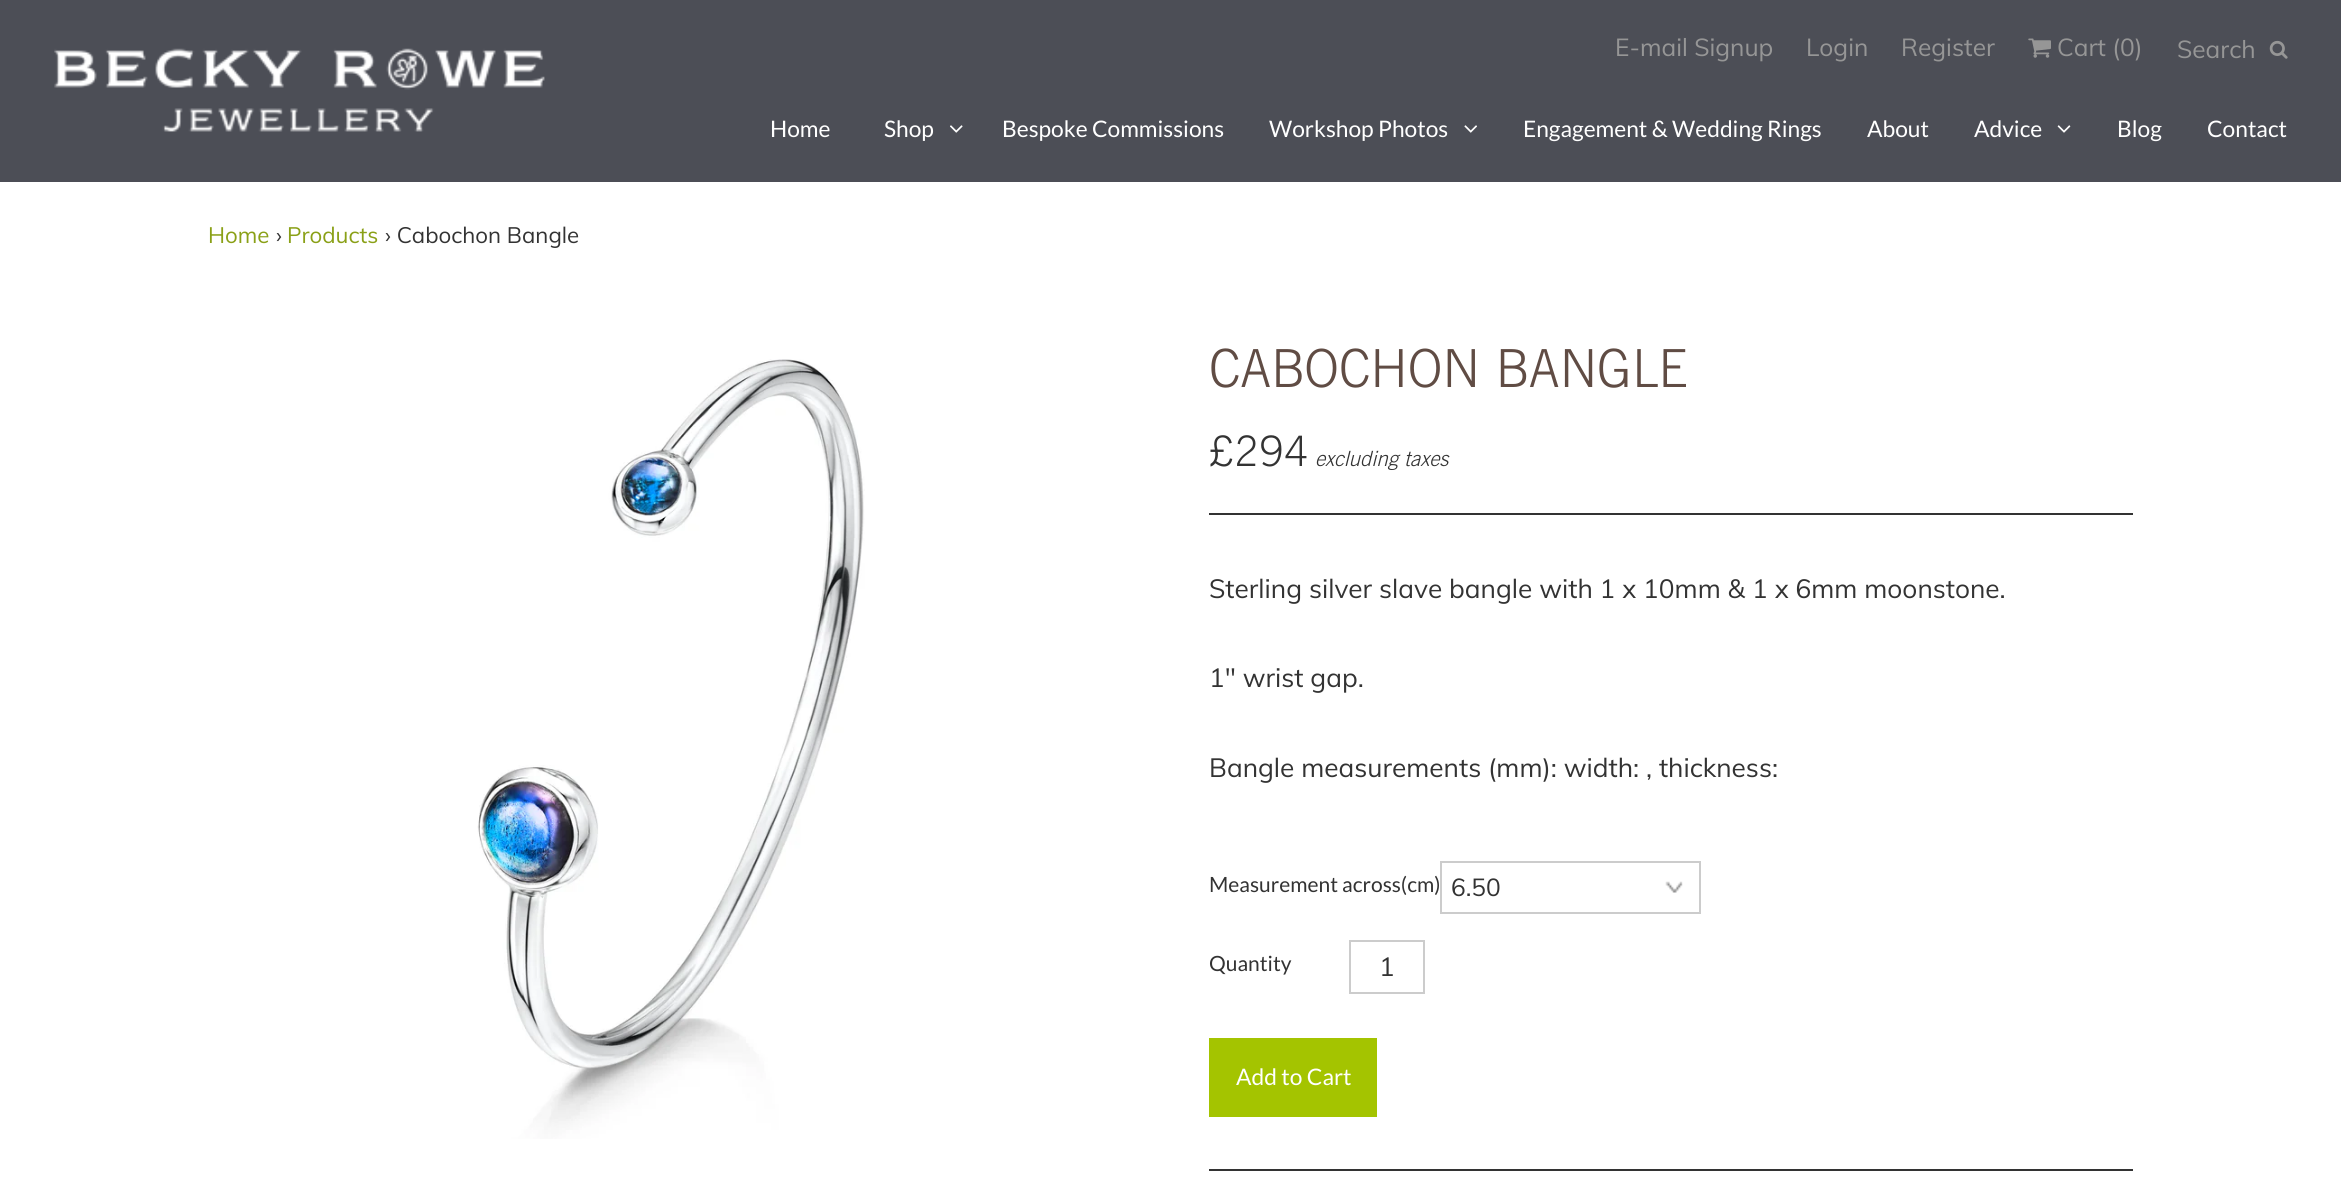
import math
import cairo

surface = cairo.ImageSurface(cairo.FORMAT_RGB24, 2341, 1203)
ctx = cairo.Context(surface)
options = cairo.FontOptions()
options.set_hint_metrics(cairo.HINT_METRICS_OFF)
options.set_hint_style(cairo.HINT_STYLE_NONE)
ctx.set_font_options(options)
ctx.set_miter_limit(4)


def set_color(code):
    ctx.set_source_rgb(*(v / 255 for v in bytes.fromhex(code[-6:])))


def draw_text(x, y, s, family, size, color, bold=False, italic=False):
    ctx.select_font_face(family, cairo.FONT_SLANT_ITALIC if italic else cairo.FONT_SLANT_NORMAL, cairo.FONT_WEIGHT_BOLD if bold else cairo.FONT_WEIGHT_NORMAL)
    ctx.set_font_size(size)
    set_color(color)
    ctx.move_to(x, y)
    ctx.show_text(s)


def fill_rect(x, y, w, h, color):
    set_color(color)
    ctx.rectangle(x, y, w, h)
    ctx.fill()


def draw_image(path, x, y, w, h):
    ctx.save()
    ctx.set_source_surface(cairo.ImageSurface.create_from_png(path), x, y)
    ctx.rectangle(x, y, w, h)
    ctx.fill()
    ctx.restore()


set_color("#ffffff")
ctx.paint()
fill_rect(0, 0, 2341, 182, "#4c4e56")
draw_image("assets/img1.png", 54, 48, 491, 84)
draw_text(1615, 56, "E-mail Signup", "Muli", 24.5, "#969696")
draw_text(1806, 56, "Login", "Muli", 24.5, "#969696")
draw_text(1901, 56, "Register", "Muli", 24.5, "#969696")
draw_image("assets/img2.png", 2028, 38, 23, 20)
draw_text(2057, 56, "Cart (0)", "Muli", 24.5, "#969696")
draw_text(2177, 58, "Search", "Muli", 24.5, "#969696")
draw_image("assets/img3.png", 2269, 40, 19, 19)
draw_text(770, 137, "Home", "Lato", 22.75, "#ffffff")
draw_text(884, 137, "Shop", "Lato", 22.75, "#ffffff")
draw_image("assets/img4.png", 950, 125, 13, 8)
draw_text(1002, 137, "Bespoke Commissions", "Lato", 22.75, "#ffffff")
draw_text(1269, 137, "Workshop Photos", "Lato", 22.75, "#ffffff")
draw_image("assets/img5.png", 1464, 125, 13, 8)
draw_text(1523, 137, "Engagement & Wedding Rings", "Lato", 22.75, "#ffffff")
draw_text(1867, 137, "About", "Lato", 22.75, "#ffffff")
draw_text(1974, 137, "Advice", "Lato", 22.75, "#ffffff")
draw_image("assets/img6.png", 2057, 125, 14, 8)
draw_text(2117, 137, "Blog", "Lato", 22.75, "#ffffff")
draw_text(2207, 137, "Contact", "Lato", 22.75, "#ffffff")
draw_text(208, 243, "Home", "Muli", 22.25, "#8aa017")
draw_text(276, 243, "›", "Muli", 22.25, "#333333")
draw_text(287, 243, "Products", "Muli", 22.25, "#8aa017")
draw_text(385, 243, "› Cabochon Bangle", "Muli", 22.25, "#333333")
draw_image("assets/img7.png", 477, 359, 388, 780)
draw_text(1209, 387, "CABOCHON BANGLE", "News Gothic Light", 52.5, "#604c44")
draw_text(1209, 466, "£294", "News Gothic Light", 42, "#333333")
draw_text(1315, 466, "excluding taxes", "News Gothic Light", 21, "#333333", italic=True)
fill_rect(1209, 513, 924, 2, "#333333")
draw_text(1209, 598, "Sterling silver slave bangle with 1 x 10mm & 1 x 6mm moonstone.", "Muli", 26.25, "#333333")
draw_text(1209, 687, "1\" wrist gap.", "Muli", 26.25, "#333333")
draw_text(1209, 777, "Bangle measurements (mm): width: , thickness:", "Muli", 26.25, "#333333")
draw_text(1209, 892, "Measurement across(cm)", "Lato", 21, "#333333")
draw_image("assets/img8.png", 1665, 881, 18, 12)
ctx.rectangle(1441, 862, 259, 51)
set_color("#cccccc")
ctx.stroke()
draw_text(1451, 896, "6.50", "Muli", 24.5, "#333333")
draw_text(1209, 971, "Quantity", "Lato", 21, "#333333")
ctx.rectangle(1350, 941, 74, 52)
set_color("#cccccc")
ctx.stroke()
draw_text(1379, 976, "1", "Muli", 26.25, "#333333")
fill_rect(1209, 1038, 168, 79, "#a4c400")
draw_text(1236, 1085, "Add to Cart", "Lato", 22.75, "#ffffff")
fill_rect(1209, 1169, 924, 2, "#333333")
surface.write_to_png("output.png")
